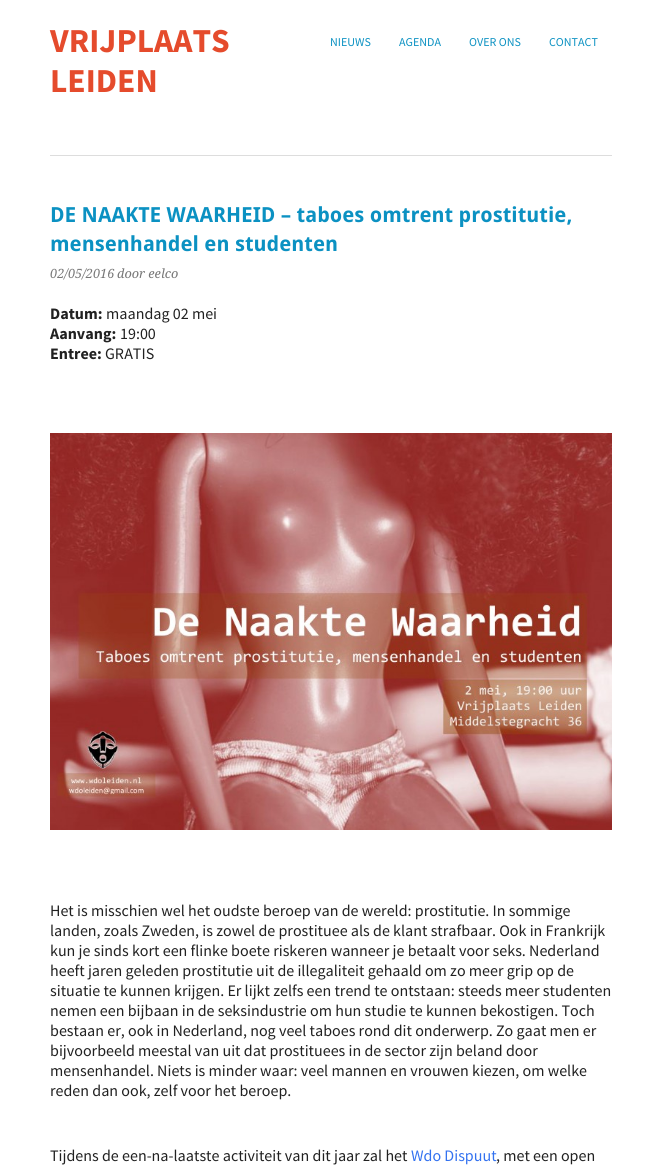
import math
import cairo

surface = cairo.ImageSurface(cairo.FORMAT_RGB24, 662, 1165)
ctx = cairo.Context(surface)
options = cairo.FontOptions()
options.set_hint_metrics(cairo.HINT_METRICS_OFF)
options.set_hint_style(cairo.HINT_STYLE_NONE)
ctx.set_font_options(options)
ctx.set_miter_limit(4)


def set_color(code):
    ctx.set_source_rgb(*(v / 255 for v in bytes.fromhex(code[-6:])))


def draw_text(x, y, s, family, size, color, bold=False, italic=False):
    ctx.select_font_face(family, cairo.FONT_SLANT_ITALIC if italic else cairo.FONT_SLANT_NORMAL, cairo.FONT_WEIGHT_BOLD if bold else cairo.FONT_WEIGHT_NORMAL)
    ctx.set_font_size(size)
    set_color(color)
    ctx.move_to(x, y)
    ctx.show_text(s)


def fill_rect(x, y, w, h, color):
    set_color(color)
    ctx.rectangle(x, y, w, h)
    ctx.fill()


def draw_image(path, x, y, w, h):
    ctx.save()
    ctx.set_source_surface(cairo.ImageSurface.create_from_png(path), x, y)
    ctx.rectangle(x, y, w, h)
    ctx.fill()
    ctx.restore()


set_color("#ffffff")
ctx.paint()
draw_text(50, 52, "VRIJPLAATS", "Source Sans Pro", 33.5, "#e54b2c", bold=True)
draw_text(50, 92, "LEIDEN", "Source Sans Pro", 33.5, "#e54b2c", bold=True)
draw_text(330, 46, "NIEUWS", "Source Sans Pro", 12, "#0b91c2")
draw_text(399, 46, "AGENDA", "Source Sans Pro", 12, "#0b91c2")
draw_text(469, 46, "OVER ONS", "Source Sans Pro", 12, "#0b91c2")
draw_text(549, 46, "CONTACT", "Source Sans Pro", 12, "#0b91c2")
fill_rect(50, 155, 562, 1, "#dddddd")
draw_text(50, 222, "DE NAAKTE WAARHEID – taboes omtrent prostitutie,", "Droid Sans", 20.8, "#0b91c2", bold=True)
draw_text(50, 251, "mensenhandel en studenten", "Droid Sans", 20.8, "#0b91c2", bold=True)
draw_text(50, 278, "02/05/2016", "Droid Serif", 12.75, "#777777", italic=True)
draw_text(117, 278, "door eelco", "Droid Serif", 12.75, "#777777", italic=True)
draw_text(50, 319, "Datum:", "Source Sans Pro", 16, "#212121", bold=True)
draw_text(106, 319, "maandag 02 mei", "Source Sans Pro", 16, "#212121")
draw_text(50, 339, "Aanvang:", "Source Sans Pro", 16, "#212121", bold=True)
draw_text(120, 339, "19:00", "Source Sans Pro", 16, "#212121")
draw_text(50, 359, "Entree:", "Source Sans Pro", 16, "#212121", bold=True)
draw_text(105, 359, "GRATIS", "Source Sans Pro", 16, "#212121")
draw_image("assets/img1.png", 50, 433, 562, 397)
draw_text(50, 916, "Het is misschien wel het oudste beroep van de wereld: prostitutie. In sommige", "Source Sans Pro", 16, "#212121")
draw_text(50, 936, "landen, zoals Zweden, is zowel de prostituee als de klant strafbaar. Ook in Frankrijk", "Source Sans Pro", 16, "#212121")
draw_text(50, 956, "kun je sinds kort een flinke boete riskeren wanneer je betaalt voor seks. Nederland", "Source Sans Pro", 16, "#212121")
draw_text(50, 976, "heeft jaren geleden prostitutie uit de illegaliteit gehaald om zo meer grip op de", "Source Sans Pro", 16, "#212121")
draw_text(50, 996, "situatie te kunnen krijgen. Er lijkt zelfs een trend te ontstaan: steeds meer studenten", "Source Sans Pro", 16, "#212121")
draw_text(50, 1016, "nemen een bijbaan in de seksindustrie om hun studie te kunnen bekostigen. Toch", "Source Sans Pro", 16, "#212121")
draw_text(50, 1036, "bestaan er, ook in Nederland, nog veel taboes rond dit onderwerp. Zo gaat men er", "Source Sans Pro", 16, "#212121")
draw_text(50, 1056, "bijvoorbeeld meestal van uit dat prostituees in de sector zijn beland door", "Source Sans Pro", 16, "#212121")
draw_text(50, 1076, "mensenhandel. Niets is minder waar: veel mannen en vrouwen kiezen, om welke", "Source Sans Pro", 16, "#212121")
draw_text(50, 1096, "reden dan ook, zelf voor het beroep.", "Source Sans Pro", 16, "#212121")
draw_text(50, 1161, "Tijdens de een-na-laatste activiteit van dit jaar zal het", "Source Sans Pro", 16, "#212121")
draw_text(411, 1161, "Wdo Dispuut", "Source Sans Pro", 16, "#3372f0")
draw_text(496, 1161, ", met een open", "Source Sans Pro", 16, "#212121")
surface.write_to_png("output.png")
